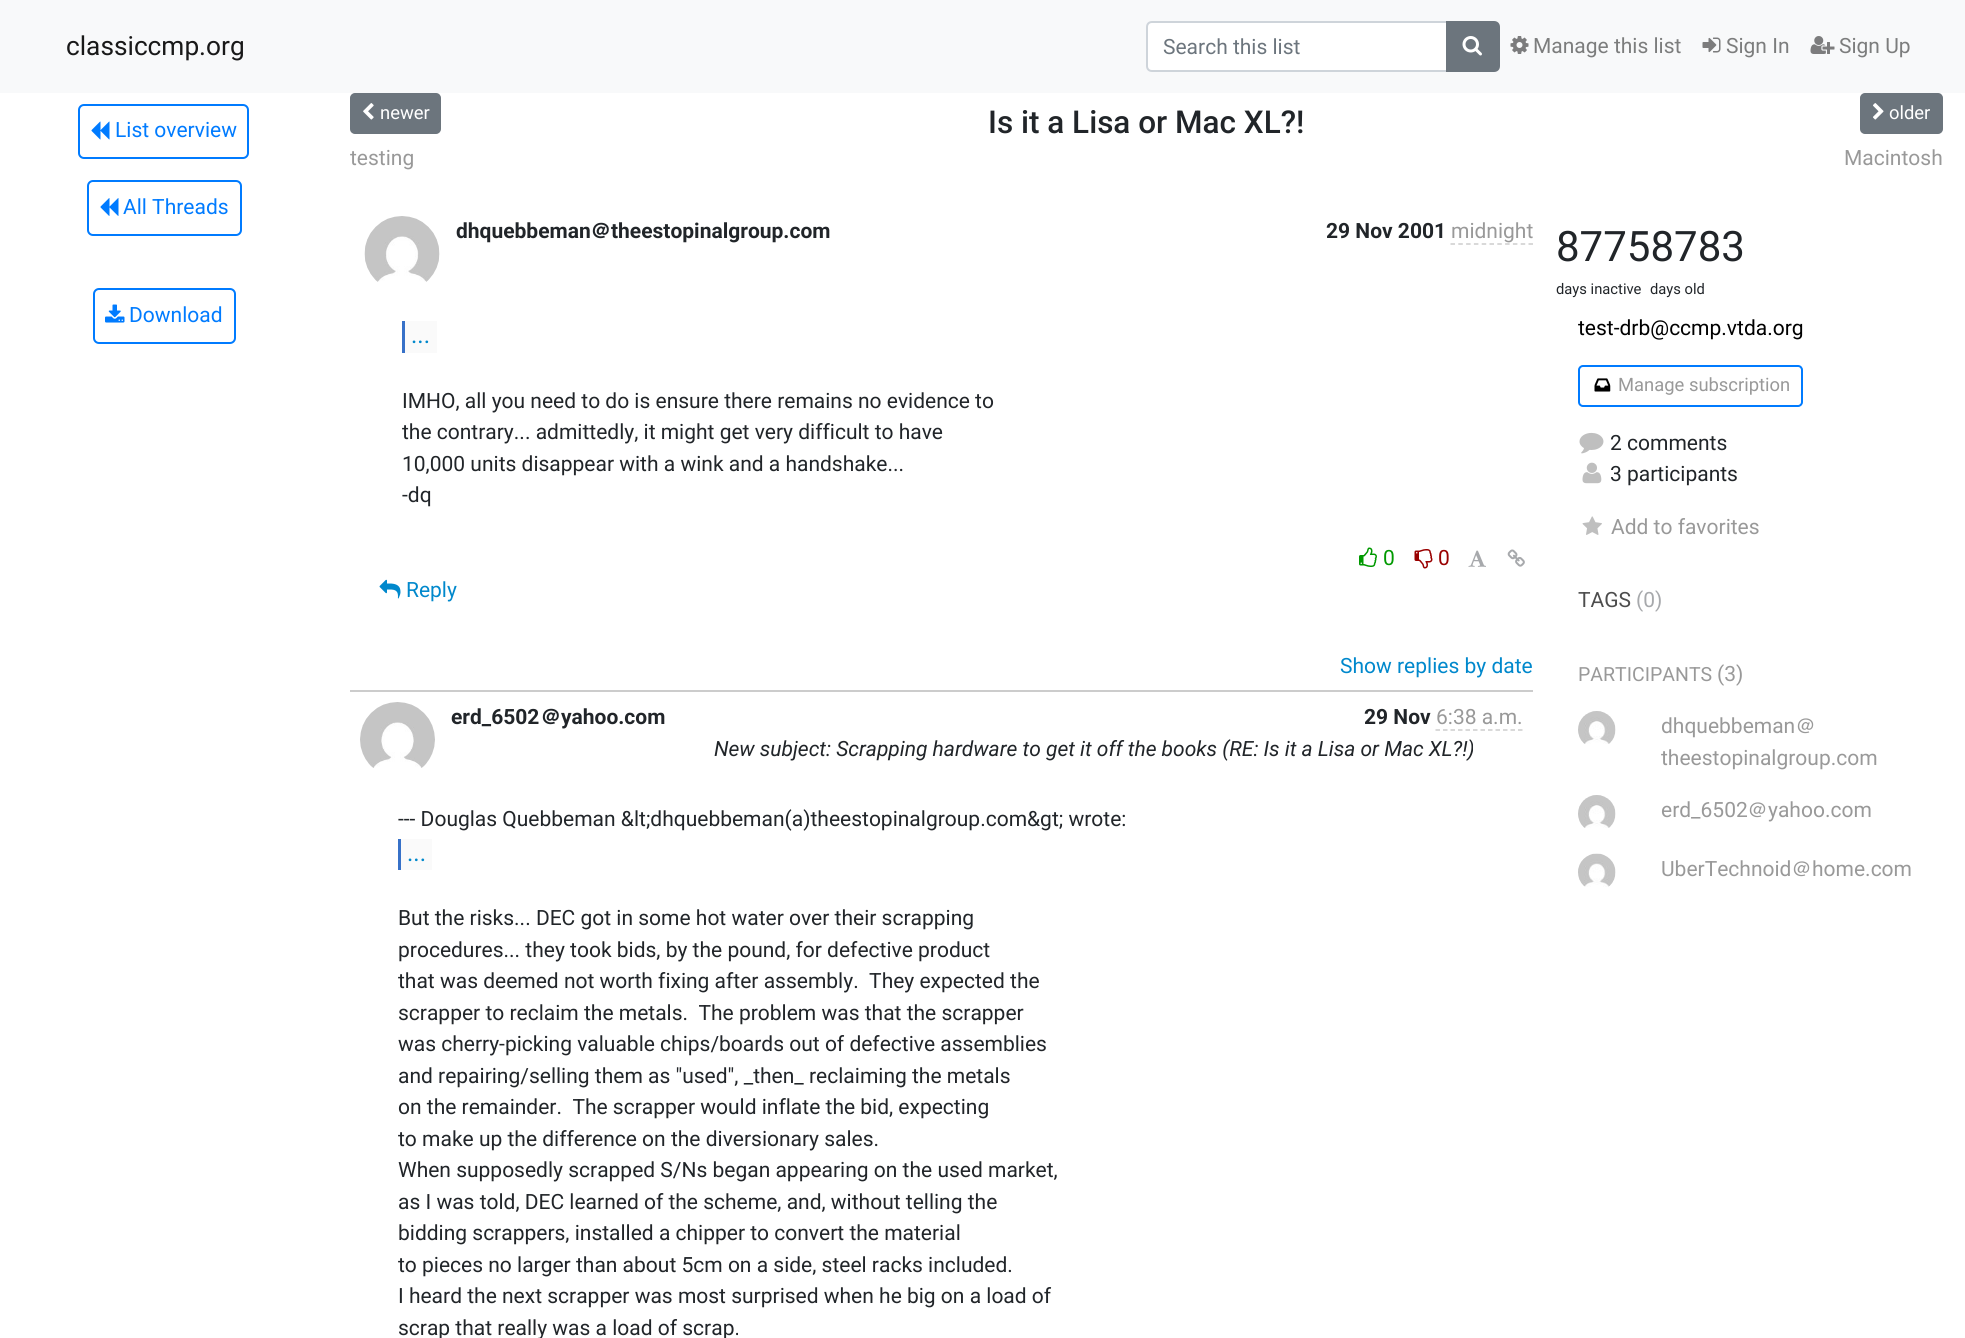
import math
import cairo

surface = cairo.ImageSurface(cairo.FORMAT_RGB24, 1965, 1338)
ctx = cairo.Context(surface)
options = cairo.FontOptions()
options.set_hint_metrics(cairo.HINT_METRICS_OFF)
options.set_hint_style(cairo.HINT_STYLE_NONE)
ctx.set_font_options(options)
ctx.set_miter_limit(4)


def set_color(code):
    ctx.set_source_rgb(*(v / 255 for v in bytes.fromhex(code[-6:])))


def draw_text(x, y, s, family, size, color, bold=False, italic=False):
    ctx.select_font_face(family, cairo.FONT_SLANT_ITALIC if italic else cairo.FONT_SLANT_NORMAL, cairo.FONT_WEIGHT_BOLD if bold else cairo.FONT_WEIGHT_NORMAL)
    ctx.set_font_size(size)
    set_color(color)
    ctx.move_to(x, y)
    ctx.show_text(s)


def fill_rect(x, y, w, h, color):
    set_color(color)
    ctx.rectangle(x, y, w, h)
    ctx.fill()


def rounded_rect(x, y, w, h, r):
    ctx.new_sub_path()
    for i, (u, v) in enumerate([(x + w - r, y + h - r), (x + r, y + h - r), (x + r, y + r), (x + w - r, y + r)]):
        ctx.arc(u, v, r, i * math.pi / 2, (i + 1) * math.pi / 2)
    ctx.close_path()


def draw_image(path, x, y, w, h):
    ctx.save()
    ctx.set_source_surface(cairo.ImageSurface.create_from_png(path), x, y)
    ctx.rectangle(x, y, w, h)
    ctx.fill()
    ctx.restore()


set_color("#ffffff")
ctx.paint()
fill_rect(0, 0, 1965, 93, "#f8f9fa")
draw_text(66, 55, "classiccmp.org", "Roboto", 26.25, "#191919")
set_color("#ffffff")
ctx.new_path()
ctx.move_to(1152, 22)
ctx.line_to(1447, 22)
ctx.line_to(1447, 71)
ctx.line_to(1152, 71)
ctx.curve_to(1149, 71, 1147, 69, 1147, 66)
ctx.line_to(1147, 27)
ctx.curve_to(1147, 24, 1149, 22, 1152, 22)
ctx.close_path()
ctx.fill_preserve()
set_color("#ced4da")
ctx.stroke()
draw_text(1163, 54, "Search this list", "Roboto", 21, "#6c757d")
ctx.new_path()
ctx.move_to(1447, 22)
ctx.line_to(1494, 22)
ctx.curve_to(1497, 22, 1499, 24, 1499, 27)
ctx.line_to(1499, 66)
ctx.curve_to(1499, 69, 1497, 71, 1494, 71)
ctx.line_to(1447, 71)
ctx.close_path()
ctx.fill_preserve()
ctx.stroke()
draw_image("assets/img1.png", 1462, 36, 20, 20)
draw_image("assets/img2.png", 1510, 36, 19, 18)
draw_text(1533, 53, "Manage this list", "Roboto", 21, "#7c7d7d")
draw_image("assets/img3.png", 1702, 37, 19, 16)
draw_text(1726, 53, "Sign In", "Roboto", 21, "#7c7d7d")
draw_image("assets/img4.png", 1810, 36, 25, 18)
draw_text(1839, 53, "Sign Up", "Roboto", 21, "#7c7d7d")
rounded_rect(79, 105, 169, 53, 5)
set_color("#007bff")
ctx.stroke()
draw_image("assets/img5.png", 91, 121, 19, 19)
draw_text(115, 137, "List overview", "Roboto", 21, "#007bff")
rounded_rect(88, 181, 153, 54, 5)
ctx.stroke()
draw_image("assets/img6.png", 100, 198, 19, 18)
draw_text(123, 214, "All Threads", "Roboto", 21, "#007bff")
rounded_rect(94, 289, 141, 54, 5)
ctx.stroke()
draw_image("assets/img7.png", 105, 304, 20, 19)
draw_text(129, 322, "Download", "Roboto", 21, "#007bff")
set_color("#6c757d")
rounded_rect(351, 94, 89, 39, 4)
ctx.fill_preserve()
ctx.stroke()
draw_image("assets/img8.png", 363, 103, 11, 17)
draw_text(380, 119, "newer", "Roboto", 18.4, "#ffffff")
draw_text(988, 133, "Is it a Lisa or Mac XL?!", "Roboto Medium", 31.5, "#212529")
set_color("#6c757d")
rounded_rect(1861, 94, 81, 39, 4)
ctx.fill_preserve()
ctx.stroke()
draw_image("assets/img9.png", 1873, 103, 11, 17)
draw_text(1889, 119, "older", "Roboto", 18.4, "#ffffff")
draw_text(350, 165, "testing", "Roboto", 21, "#999999")
draw_text(1844, 165, "Macintosh", "Roboto", 21, "#999999")
draw_image("assets/img10.png", 364, 216, 76, 66)
draw_text(456, 238, "dhquebbeman", "Roboto", 21, "#212529", bold=True)
draw_text(590, 238, "＠", "WenQuanYi Zen Hei", 21, "#212529", bold=True)
draw_text(611, 238, "theestopinalgroup.com", "Roboto", 21, "#212529", bold=True)
draw_text(1326, 238, "29 Nov 2001", "Roboto", 21, "#212529", bold=True)
draw_text(1451, 238, "midnight", "Roboto", 21, "#999999")
ctx.new_path()
ctx.move_to(1450.5, 244)
ctx.line_to(1533, 244)
set_color("#cccccc")
ctx.set_line_width(1.5)
ctx.set_dash([4.5, 3.3])
ctx.stroke()
fill_rect(405, 321, 32, 32, "#fafafa")
draw_text(411, 343, "...", "Roboto", 24, "#0088cc")
fill_rect(402, 321, 3, 32, "#3771c8")
draw_text(402, 408, "IMHO, all you need to do is ensure there remains no evidence to", "Roboto", 21, "#212529")
draw_text(402, 439, "the contrary... admittedly, it might get very difficult to have", "Roboto", 21, "#212529")
draw_text(402, 471, "10,000 units disappear with a wink and a handshake...", "Roboto", 21, "#212529")
draw_text(402, 502, "-dq", "Roboto", 21, "#212529")
draw_image("assets/img11.png", 1359, 547, 18, 20)
draw_text(1383, 565, "0", "Roboto", 21, "#009900")
draw_image("assets/img12.png", 1414, 549, 19, 20)
draw_text(1438, 565, "0", "Roboto", 21, "#990000")
draw_image("assets/img13.png", 1468, 550, 18, 17)
draw_image("assets/img14.png", 1507, 549, 18, 18)
draw_image("assets/img15.png", 379, 579, 22, 20)
draw_text(406, 597, "Reply", "Roboto", 21, "#0088cc")
draw_text(1340, 673, "Show replies by date", "Roboto", 21, "#0088cc")
fill_rect(350, 690, 1183, 2, "#cccccc")
draw_image("assets/img16.png", 360, 702, 75, 66)
draw_text(451, 724, "erd_6502", "Roboto", 21, "#212529", bold=True)
draw_text(540, 724, "＠", "WenQuanYi Zen Hei", 21, "#212529", bold=True)
draw_text(561, 724, "yahoo.com", "Roboto", 21, "#212529", bold=True)
draw_text(1364, 724, "29 Nov", "Roboto", 21, "#212529", bold=True)
draw_text(1436, 724, "6:38 a.m.", "Roboto", 21, "#999999")
ctx.new_path()
ctx.move_to(1435.5, 730)
ctx.line_to(1522.5, 730)
set_color("#cccccc")
ctx.set_dash([4.5, 3])
ctx.stroke()
draw_text(714, 756, "New subject: Scrapping hardware to get it off the books (RE: Is it a Lisa or Mac XL?!)", "Roboto", 21, "#212529", italic=True)
draw_text(398, 826, "--- Douglas Quebbeman &lt;dhquebbeman(a)theestopinalgroup.com&gt; wrote:", "Roboto", 21, "#212529")
fill_rect(401, 839, 31, 31, "#fafafa")
draw_text(407, 861, "...", "Roboto", 24, "#0088cc")
fill_rect(398, 839, 3, 31, "#3771c8")
draw_text(398, 925, "But the risks... DEC got in some hot water over their scrapping", "Roboto", 21, "#212529")
draw_text(398, 957, "procedures... they took bids, by the pound, for defective product", "Roboto", 21, "#212529")
draw_text(398, 988, "that was deemed not worth fixing after assembly.  They expected the", "Roboto", 21, "#212529")
draw_text(398, 1020, "scrapper to reclaim the metals.  The problem was that the scrapper", "Roboto", 21, "#212529")
draw_text(398, 1051, "was cherry-picking valuable chips/boards out of defective assemblies", "Roboto", 21, "#212529")
draw_text(398, 1083, "and repairing/selling them as \"used\", _then_ reclaiming the metals", "Roboto", 21, "#212529")
draw_text(398, 1114, "on the remainder.  The scrapper would inflate the bid, expecting", "Roboto", 21, "#212529")
draw_text(398, 1146, "to make up the difference on the diversionary sales.", "Roboto", 21, "#212529")
draw_text(398, 1177, "When supposedly scrapped S/Ns began appearing on the used market,", "Roboto", 21, "#212529")
draw_text(398, 1209, "as I was told, DEC learned of the scheme, and, without telling the", "Roboto", 21, "#212529")
draw_text(398, 1240, "bidding scrappers, installed a chipper to convert the material", "Roboto", 21, "#212529")
draw_text(398, 1272, "to pieces no larger than about 5cm on a side, steel racks included.", "Roboto", 21, "#212529")
draw_text(398, 1303, "I heard the next scrapper was most surprised when he big on a load of", "Roboto", 21, "#212529")
draw_text(398, 1335, "scrap that really was a load of scrap.", "Roboto", 21, "#212529")
draw_text(1556, 261, "87758783", "Roboto", 42, "#212529")
draw_text(1556, 294, "days inactive", "Roboto", 14.75, "#212529")
draw_text(1650, 294, "days old", "Roboto", 14.75, "#212529")
draw_text(1578, 335, "test-drb@ccmp.vtda.org", "Roboto", 21, "#000000")
rounded_rect(1579, 366, 223, 40, 4)
set_color("#007bff")
ctx.set_line_width(2)
ctx.set_dash([])
ctx.stroke()
draw_image("assets/img17.png", 1594, 378, 17, 14)
draw_text(1618, 391, "Manage subscription", "Roboto", 18.4, "#999999")
draw_image("assets/img18.png", 1579, 432, 25, 22)
draw_text(1610, 450, "2 comments", "Roboto", 21, "#212529")
draw_image("assets/img19.png", 1582, 462, 20, 22)
draw_text(1610, 481, "3 participants", "Roboto", 21, "#212529")
draw_image("assets/img20.png", 1582, 516, 20, 19)
draw_text(1611, 534, "Add to favorites", "Roboto", 21, "#999999")
draw_text(1578, 607, "TAGS", "Roboto", 21, "#4d4d4d")
draw_text(1636, 607, "(0)", "Roboto", 21, "#a7a9ac")
draw_text(1578, 681, "PARTICIPANTS", "Roboto", 19.5, "#999999")
draw_text(1717, 681, "(3)", "Roboto", 21, "#999999")
draw_image("assets/img21.png", 1578, 711, 38, 33)
draw_text(1661, 733, "dhquebbeman", "Roboto", 21, "#999999")
draw_text(1795, 733, "＠", "WenQuanYi Zen Hei Medium", 21, "#999999")
draw_text(1661, 765, "theestopinalgroup.com", "Roboto", 21, "#999999")
draw_image("assets/img21.png", 1578, 795, 38, 33)
draw_text(1661, 817, "erd_6502", "Roboto", 21, "#999999")
draw_text(1747, 817, "＠", "WenQuanYi Zen Hei Medium", 21, "#999999")
draw_text(1768, 817, "yahoo.com", "Roboto", 21, "#999999")
draw_image("assets/img22.png", 1578, 853, 38, 34)
draw_text(1661, 876, "UberTechnoid", "Roboto", 21, "#999999")
draw_text(1791, 876, "＠", "WenQuanYi Zen Hei Medium", 21, "#999999")
draw_text(1812, 876, "home.com", "Roboto", 21, "#999999")
surface.write_to_png("output.png")
